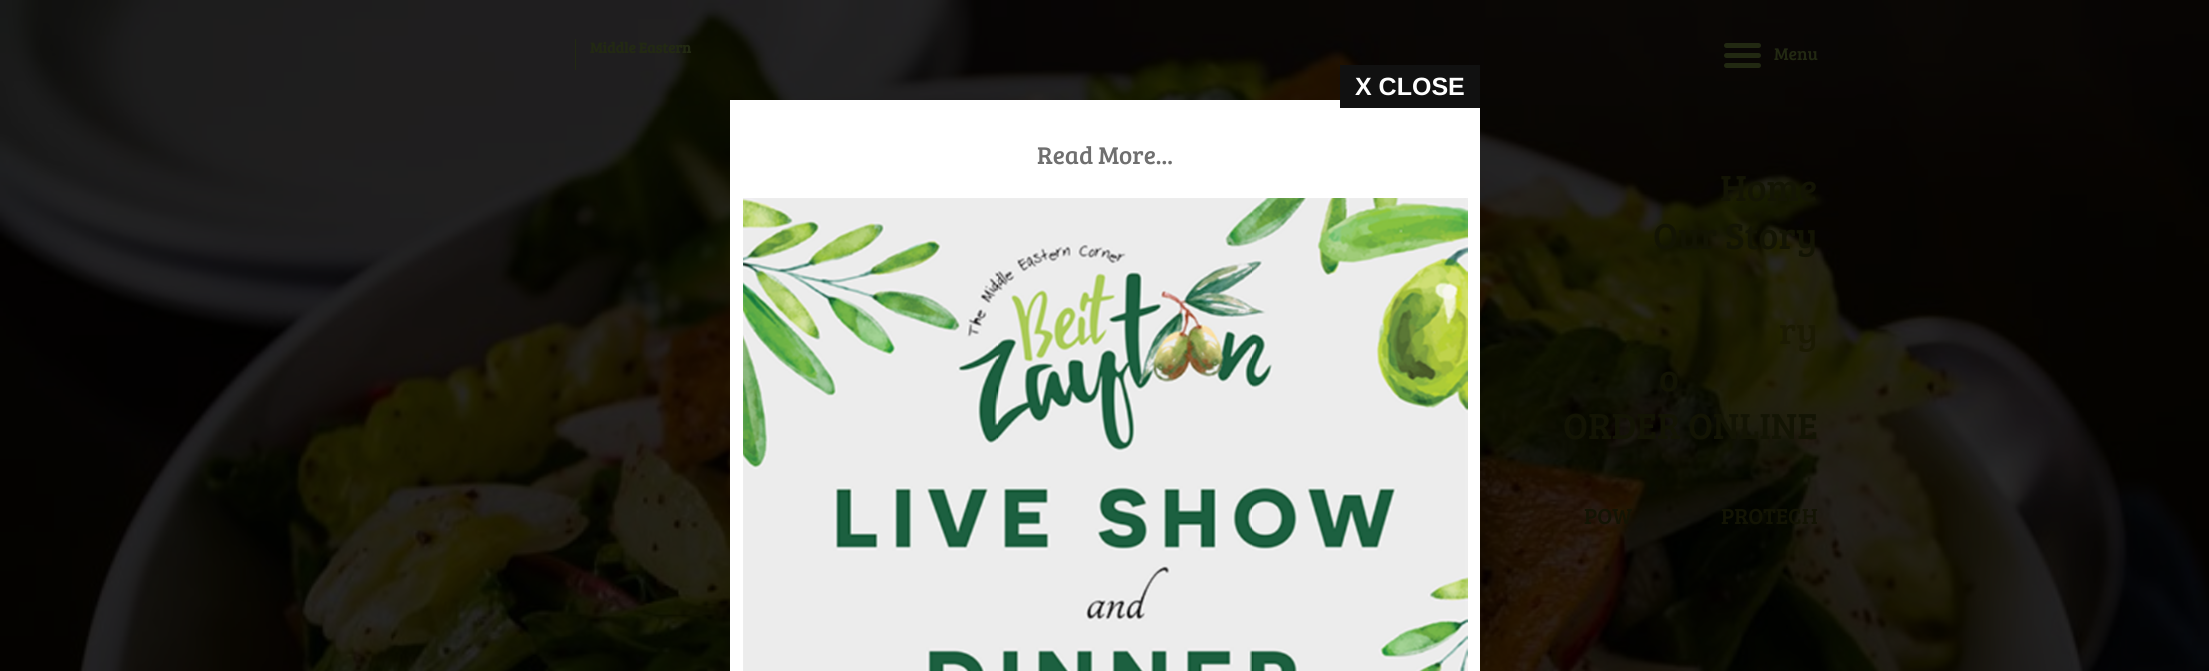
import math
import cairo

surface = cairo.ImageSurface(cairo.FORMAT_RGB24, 2209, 671)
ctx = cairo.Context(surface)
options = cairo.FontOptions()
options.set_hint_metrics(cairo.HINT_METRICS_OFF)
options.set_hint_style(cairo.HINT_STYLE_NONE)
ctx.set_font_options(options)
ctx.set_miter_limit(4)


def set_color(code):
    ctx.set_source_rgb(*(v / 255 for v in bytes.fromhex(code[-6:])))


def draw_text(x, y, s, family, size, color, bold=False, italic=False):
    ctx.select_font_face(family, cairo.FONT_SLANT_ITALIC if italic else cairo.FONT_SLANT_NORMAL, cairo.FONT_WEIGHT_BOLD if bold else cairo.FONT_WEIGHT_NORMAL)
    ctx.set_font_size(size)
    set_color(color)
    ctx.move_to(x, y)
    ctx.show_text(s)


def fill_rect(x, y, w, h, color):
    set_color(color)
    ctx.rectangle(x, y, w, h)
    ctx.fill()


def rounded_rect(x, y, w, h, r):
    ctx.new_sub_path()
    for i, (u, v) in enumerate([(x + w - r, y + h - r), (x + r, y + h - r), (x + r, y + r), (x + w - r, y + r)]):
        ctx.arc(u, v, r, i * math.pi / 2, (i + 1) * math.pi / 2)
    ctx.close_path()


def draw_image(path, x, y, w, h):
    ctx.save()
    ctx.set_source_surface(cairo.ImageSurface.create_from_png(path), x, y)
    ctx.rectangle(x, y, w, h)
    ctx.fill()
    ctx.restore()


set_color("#ffffff")
ctx.paint()
draw_image("assets/img1.png", 0, 0, 2209, 671)
fill_rect(575, 39, 1, 31, "#222912")
draw_text(590, 53, "Middle Eastern", "Bree Serif", 15, "#222912", bold=True)
rounded_rect(1724, 43, 37, 5, 2.5)
ctx.fill()
rounded_rect(1724, 53, 37, 5, 2.5)
ctx.fill()
draw_text(1774, 60, "Menu", "Bree Serif", 17.5, "#222912")
rounded_rect(1724, 63, 37, 5, 2.5)
ctx.fill()
draw_text(1720, 201, "Home", "Bree Serif", 37.5, "#131404")
draw_text(1653, 249, "Our Story", "Bree Serif", 37.5, "#131404")
draw_text(1779, 344, "ry", "Bree Serif", 37.5, "#1b1a03")
draw_text(1659, 391, "o", "Bree Serif", 37.5, "#131404")
draw_text(1563, 439, "ORDER ONLINE", "Bree Serif", 37.5, "#131404")
draw_text(1584, 524, "POW", "Bree Serif", 22.5, "#131404")
draw_text(1721, 524, "PROTECH", "Bree Serif", 22.5, "#131404")
fill_rect(730, 100, 750, 571, "#ffffff")
fill_rect(1340, 65, 140, 43, "#111111")
draw_text(1355, 95, "X CLOSE", "Liberation Sans", 25, "#ffffff", bold=True)
draw_text(1037, 164, "Read More...", "Bree Serif", 25, "#6f6f6f")
draw_image("assets/img2.png", 743, 198, 725, 473)
surface.write_to_png("output.png")
